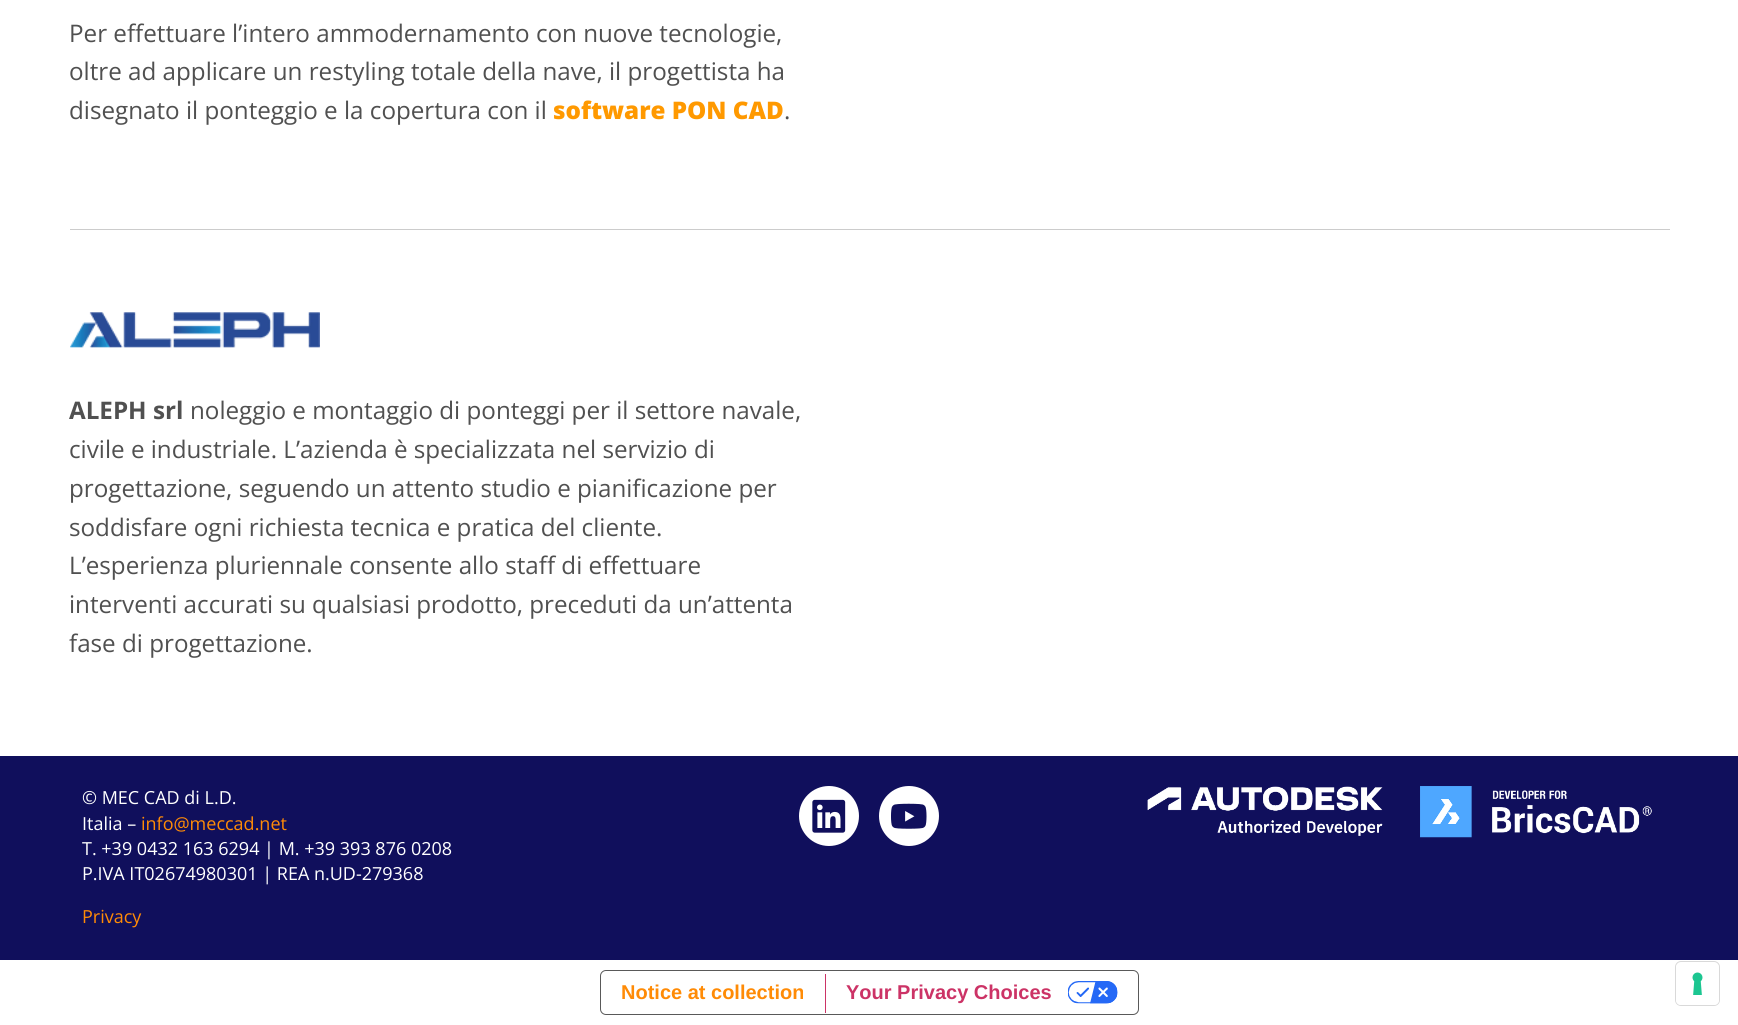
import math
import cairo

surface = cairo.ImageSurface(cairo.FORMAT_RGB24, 1738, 1025)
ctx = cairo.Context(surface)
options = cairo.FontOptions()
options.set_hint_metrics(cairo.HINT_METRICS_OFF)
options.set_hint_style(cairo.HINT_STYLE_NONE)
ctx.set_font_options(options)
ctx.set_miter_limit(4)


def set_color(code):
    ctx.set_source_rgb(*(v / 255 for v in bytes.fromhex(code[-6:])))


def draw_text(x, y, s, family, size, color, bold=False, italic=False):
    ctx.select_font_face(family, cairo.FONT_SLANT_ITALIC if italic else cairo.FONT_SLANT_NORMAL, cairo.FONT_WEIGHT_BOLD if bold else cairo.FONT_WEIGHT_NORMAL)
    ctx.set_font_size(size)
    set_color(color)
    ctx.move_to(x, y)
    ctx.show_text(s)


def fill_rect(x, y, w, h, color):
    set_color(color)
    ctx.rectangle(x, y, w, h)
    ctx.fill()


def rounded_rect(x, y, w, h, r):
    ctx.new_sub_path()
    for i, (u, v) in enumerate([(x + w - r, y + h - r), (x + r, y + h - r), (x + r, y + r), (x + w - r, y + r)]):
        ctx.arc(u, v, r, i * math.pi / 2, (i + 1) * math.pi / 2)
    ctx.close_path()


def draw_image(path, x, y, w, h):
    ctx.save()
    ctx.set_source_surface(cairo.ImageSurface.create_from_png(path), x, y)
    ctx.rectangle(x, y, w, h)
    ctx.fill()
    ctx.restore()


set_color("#ffffff")
ctx.paint()
draw_text(69, 42, "Per effettuare l’intero ammodernamento con nuove tecnologie,", "Open Sans", 24.2, "#505050")
draw_text(69, 80, "oltre ad applicare un restyling totale della nave, il progettista ha", "Open Sans", 24.2, "#505050")
draw_text(69, 119, "disegnato il ponteggio e la copertura con il", "Open Sans", 24.2, "#505050")
draw_text(553, 119, "software PON CAD", "Open Sans ExtraBold", 24.2, "#ff9900")
draw_text(784, 119, ".", "Open Sans", 24.2, "#505050")
fill_rect(70, 229, 1600, 1, "#cccccc")
draw_image("assets/img1.png", 70, 312, 250, 36)
draw_text(69, 419, "ALEPH srl", "Open Sans", 24.2, "#505050", bold=True)
draw_text(190, 419, "noleggio e montaggio di ponteggi per il settore navale,", "Open Sans", 24.2, "#505050")
draw_text(69, 458, "civile e industriale. L’azienda è specializzata nel servizio di", "Open Sans", 24.2, "#505050")
draw_text(69, 497, "progettazione, seguendo un attento studio e pianificazione per", "Open Sans", 24.2, "#505050")
draw_text(69, 536, "soddisfare ogni richiesta tecnica e pratica del cliente.", "Open Sans", 24.2, "#505050")
draw_text(69, 574, "L’esperienza pluriennale consente allo staff di effettuare", "Open Sans", 24.2, "#505050")
draw_text(69, 613, "interventi accurati su qualsiasi prodotto, preceduti da un’attenta", "Open Sans", 24.2, "#505050")
draw_text(69, 652, "fase di progettazione.", "Open Sans", 24.2, "#505050")
fill_rect(0, 756, 1738, 204, "#100f5c")
draw_text(82, 804, "© MEC CAD di L.D.", "Open Sans", 18, "#ffffff")
draw_text(82, 830, "Italia –", "Open Sans", 18, "#ffffff")
draw_text(141, 830, "info@meccad.net", "Open Sans", 18, "#ff8b06")
draw_text(82, 855, "T. +39 0432 163 6294 | M. +39 393 876 0208", "Open Sans", 18, "#ffffff")
draw_text(82, 880, "P.IVA IT02674980301 | REA n.UD-279368", "Open Sans", 18, "#ffffff")
draw_text(82, 923, "Privacy", "Open Sans", 18, "#ff8b06")
set_color("#ffffff")
ctx.new_path()
ctx.arc(829, 816, 30, 0, 2 * math.pi)
ctx.fill()
draw_image("assets/img2.png", 812, 799, 34, 34)
ctx.arc(909, 816, 30, 0, 2 * math.pi)
ctx.fill()
draw_image("assets/img3.png", 891, 803, 36, 26)
draw_image("assets/img4.png", 1147, 786, 236, 50)
draw_image("assets/img5.png", 1420, 786, 232, 52)
rounded_rect(600.5, 970.5, 538, 44, 5.5)
set_color("#595959")
ctx.set_line_width(1)
ctx.stroke()
draw_text(621, 999, "Notice at collection", "Liberation Sans", 20, "#ff8b06", bold=True)
fill_rect(825, 974, 1, 39, "#cc3366")
draw_text(846, 999, "Your Privacy Choices", "Liberation Sans", 20, "#cc3366", bold=True)
draw_image("assets/img6.png", 1068, 981, 50, 23)
rounded_rect(1675.5, 961.5, 44, 44, 5.5)
set_color("#d9d9d9")
ctx.stroke()
set_color("#ffffff")
rounded_rect(1676, 963, 43, 42, 5)
ctx.fill()
draw_image("assets/img7.png", 1692, 972, 11, 23)
surface.write_to_png("output.png")
